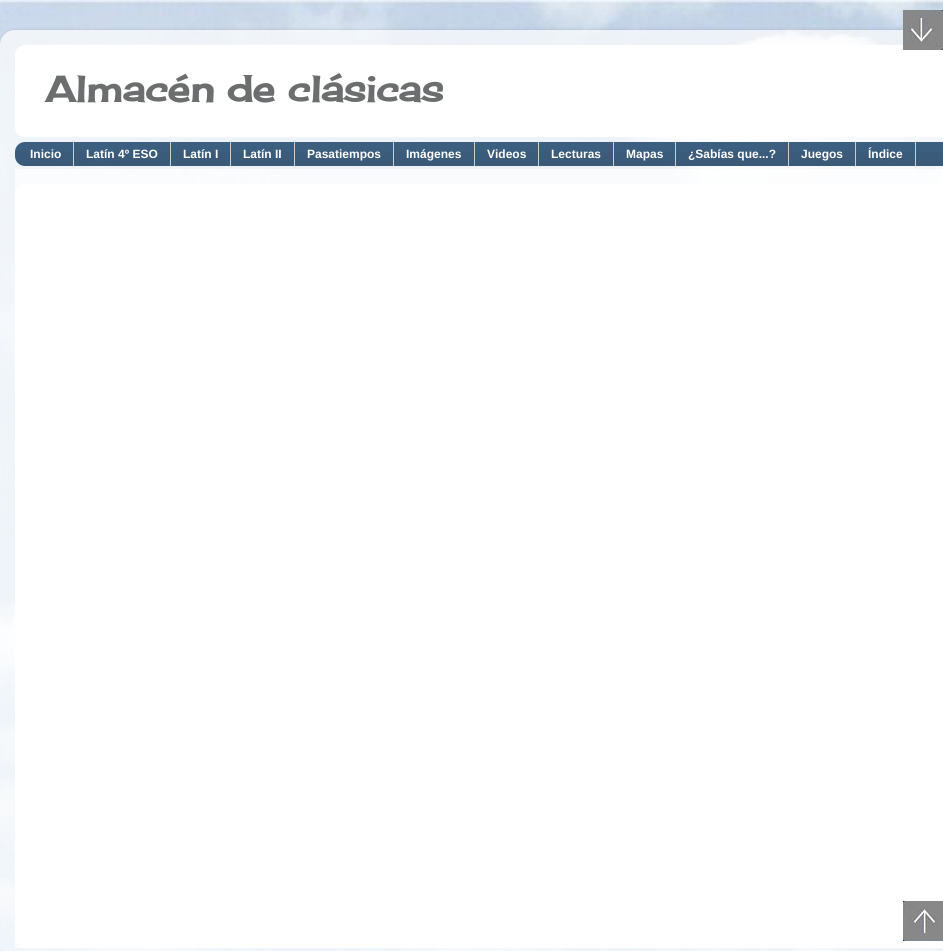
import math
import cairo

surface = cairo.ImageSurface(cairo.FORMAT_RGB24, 943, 951)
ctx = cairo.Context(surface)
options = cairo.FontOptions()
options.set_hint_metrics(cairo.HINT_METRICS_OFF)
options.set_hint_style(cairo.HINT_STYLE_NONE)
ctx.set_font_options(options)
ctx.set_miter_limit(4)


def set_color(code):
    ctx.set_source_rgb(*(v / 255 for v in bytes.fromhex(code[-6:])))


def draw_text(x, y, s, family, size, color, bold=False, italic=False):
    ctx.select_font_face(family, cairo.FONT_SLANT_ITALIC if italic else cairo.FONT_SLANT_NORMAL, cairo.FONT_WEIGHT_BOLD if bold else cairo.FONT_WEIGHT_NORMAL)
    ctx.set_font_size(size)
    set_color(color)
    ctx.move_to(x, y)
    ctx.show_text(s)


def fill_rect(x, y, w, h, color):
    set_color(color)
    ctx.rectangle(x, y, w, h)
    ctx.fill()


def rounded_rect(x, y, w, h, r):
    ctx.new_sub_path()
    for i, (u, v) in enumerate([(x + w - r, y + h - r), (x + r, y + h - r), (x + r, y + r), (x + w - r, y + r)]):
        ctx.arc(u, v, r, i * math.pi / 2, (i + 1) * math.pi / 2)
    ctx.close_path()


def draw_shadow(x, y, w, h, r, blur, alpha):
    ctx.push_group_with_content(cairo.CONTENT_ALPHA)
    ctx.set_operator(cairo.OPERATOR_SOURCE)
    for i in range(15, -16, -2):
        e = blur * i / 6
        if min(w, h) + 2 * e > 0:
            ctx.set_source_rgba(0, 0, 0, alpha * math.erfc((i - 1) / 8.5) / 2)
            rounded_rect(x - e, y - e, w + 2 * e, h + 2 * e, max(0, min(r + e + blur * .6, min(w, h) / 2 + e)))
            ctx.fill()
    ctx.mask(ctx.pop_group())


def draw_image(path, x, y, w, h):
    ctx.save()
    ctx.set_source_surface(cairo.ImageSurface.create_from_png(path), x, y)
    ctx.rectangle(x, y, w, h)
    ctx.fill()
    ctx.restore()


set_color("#ffffff")
ctx.paint()
draw_image("assets/img1.png", 0, 0, 943, 951)
ctx.save()
ctx.set_fill_rule(cairo.FILL_RULE_EVEN_ODD)
ctx.new_path()
ctx.move_to(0, 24)
ctx.line_to(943, 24)
ctx.line_to(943, 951)
ctx.line_to(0, 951)
ctx.close_path()
ctx.move_to(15, 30)
ctx.line_to(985, 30)
ctx.curve_to(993.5, 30, 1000, 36.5, 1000, 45)
ctx.line_to(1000, 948)
ctx.curve_to(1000, 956.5, 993.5, 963, 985, 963)
ctx.line_to(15, 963)
ctx.curve_to(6.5, 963, 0, 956.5, 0, 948)
ctx.line_to(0, 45)
ctx.curve_to(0, 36.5, 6.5, 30, 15, 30)
ctx.close_path()
ctx.clip()
set_color("#000000")
draw_shadow(0, 30, 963, 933, 15, 1.5, 0.15)
ctx.restore()
draw_image("assets/img3.png", 0, 30, 943, 921)
set_color("#ffffff")
rounded_rect(15, 45, 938, 92, 10)
ctx.fill()
draw_image("assets/img2.png", 903, 10, 40, 40)
draw_text(45, 102, "Almacén de clásicas", "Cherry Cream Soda", 36, "#6c6d6e", bold=True)
set_color("#3c5e7f")
rounded_rect(15, 142, 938, 24, 10)
ctx.fill()
draw_image("assets/img4.png", 15, 151, 928, 15)
fill_rect(73, 142, 1, 24, "#cccccc")
draw_text(30, 158, "Inicio", "Liberation Sans", 12, "#ffffff", bold=True)
fill_rect(170, 142, 1, 24, "#cccccc")
draw_text(86, 158, "Latín 4º ESO", "Liberation Sans", 12, "#ffffff", bold=True)
fill_rect(230, 142, 1, 24, "#cccccc")
draw_text(183, 158, "Latín I", "Liberation Sans", 12, "#ffffff", bold=True)
fill_rect(294, 142, 1, 24, "#cccccc")
draw_text(243, 158, "Latín II", "Liberation Sans", 12, "#ffffff", bold=True)
fill_rect(393, 142, 1, 24, "#cccccc")
draw_text(307, 158, "Pasatiempos", "Liberation Sans", 12, "#ffffff", bold=True)
fill_rect(474, 142, 1, 24, "#cccccc")
draw_text(406, 158, "Imágenes", "Liberation Sans", 12, "#ffffff", bold=True)
fill_rect(538, 142, 1, 24, "#cccccc")
draw_text(487, 158, "Videos", "Liberation Sans", 12, "#ffffff", bold=True)
fill_rect(613, 142, 1, 24, "#cccccc")
draw_text(551, 158, "Lecturas", "Liberation Sans", 12, "#ffffff", bold=True)
fill_rect(675, 142, 1, 24, "#cccccc")
draw_text(626, 158, "Mapas", "Liberation Sans", 12, "#ffffff", bold=True)
fill_rect(788, 142, 1, 24, "#cccccc")
draw_text(688, 158, "¿Sabías que...?", "Liberation Sans", 12, "#ffffff", bold=True)
fill_rect(855, 142, 1, 24, "#cccccc")
draw_text(801, 158, "Juegos", "Liberation Sans", 12, "#ffffff", bold=True)
fill_rect(915, 142, 1, 24, "#cccccc")
draw_text(868, 158, "Índice", "Liberation Sans", 12, "#ffffff", bold=True)
ctx.set_source_rgba(1, 1, 1, 0.7)
ctx.rectangle(15, 169, 928, 779)
ctx.fill()
set_color("#ffffff")
rounded_rect(15, 184, 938, 764, 10)
ctx.fill()
draw_image("assets/img5.png", 903, 901, 40, 40)
surface.write_to_png("output.png")
